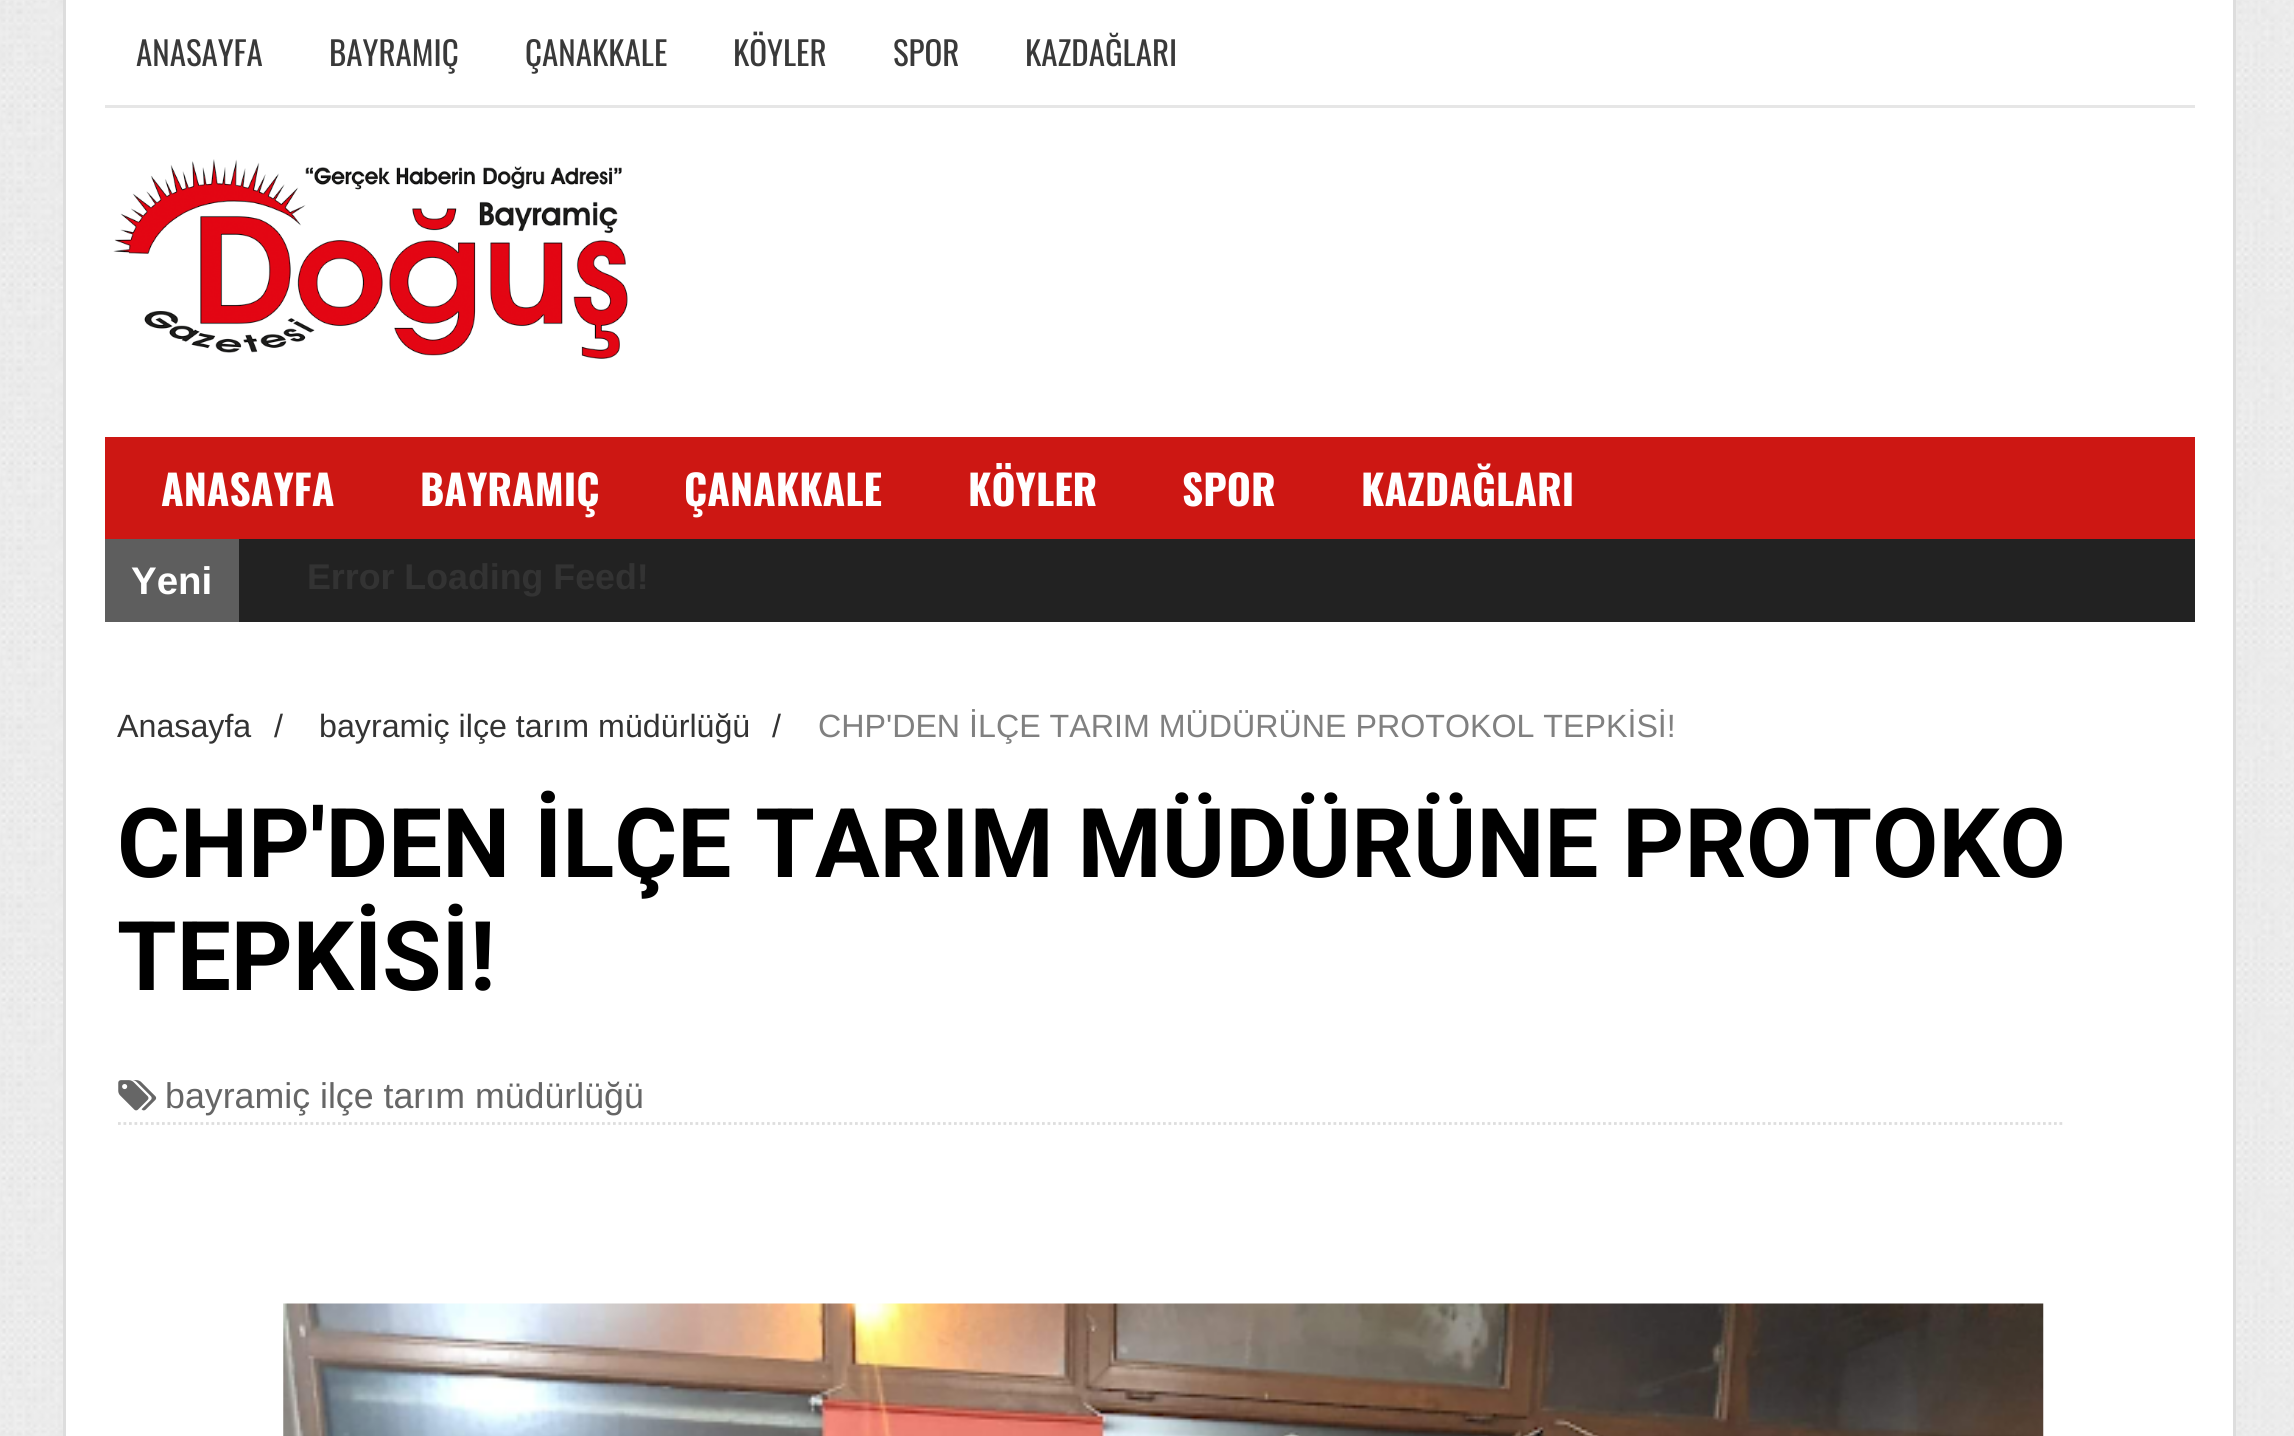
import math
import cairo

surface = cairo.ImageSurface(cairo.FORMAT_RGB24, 2294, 1436)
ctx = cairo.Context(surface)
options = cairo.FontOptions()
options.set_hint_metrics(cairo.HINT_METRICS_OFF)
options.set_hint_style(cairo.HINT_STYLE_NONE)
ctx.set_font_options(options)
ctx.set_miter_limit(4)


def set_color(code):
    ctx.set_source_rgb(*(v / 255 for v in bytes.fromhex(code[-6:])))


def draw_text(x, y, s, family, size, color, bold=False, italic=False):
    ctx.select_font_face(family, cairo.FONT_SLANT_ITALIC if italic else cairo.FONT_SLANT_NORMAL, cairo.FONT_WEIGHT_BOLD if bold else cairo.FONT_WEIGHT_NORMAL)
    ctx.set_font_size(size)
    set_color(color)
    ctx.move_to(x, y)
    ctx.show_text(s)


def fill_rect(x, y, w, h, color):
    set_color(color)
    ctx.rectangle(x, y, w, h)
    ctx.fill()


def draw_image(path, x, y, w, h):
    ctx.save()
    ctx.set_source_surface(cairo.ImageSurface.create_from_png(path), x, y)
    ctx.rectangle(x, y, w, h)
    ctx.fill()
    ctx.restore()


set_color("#ffffff")
ctx.paint()
draw_image("assets/img1.png", 0, 0, 2294, 1436)
fill_rect(66, 0, 2167, 1436, "#ffffff")
fill_rect(2233, 0, 3, 1436, "#dddddd")
fill_rect(63, 0, 3, 1436, "#dddddd")
fill_rect(105, 105, 2090, 3, "#e6e6e6")
draw_text(136, 66, "ANASAYFA", "Oswald", 33, "#393939")
draw_text(329, 66, "BAYRAMIÇ", "Oswald", 33, "#393939")
draw_text(525, 66, "ÇANAKKALE", "Oswald", 33, "#393939")
draw_text(733, 66, "KÖYLER", "Oswald", 33, "#393939")
draw_text(893, 66, "SPOR", "Oswald", 33, "#393939")
draw_text(1025, 66, "KAZDAĞLARI", "Oswald", 33, "#393939")
draw_image("assets/img2.png", 113, 159, 515, 200)
fill_rect(105, 437, 2090, 102, "#cd1713")
draw_text(161, 506, "ANASAYFA", "Oswald", 41.25, "#ffffff", bold=True)
draw_text(420, 506, "BAYRAMIÇ", "Oswald", 41.25, "#ffffff", bold=True)
draw_text(684, 506, "ÇANAKKALE", "Oswald", 41.25, "#ffffff", bold=True)
draw_text(968, 506, "KÖYLER", "Oswald", 41.25, "#ffffff", bold=True)
draw_text(1182, 506, "SPOR", "Oswald", 41.25, "#ffffff", bold=True)
draw_text(1361, 506, "KAZDAĞLARI", "Oswald", 41.25, "#ffffff", bold=True)
fill_rect(239, 539, 1956, 83, "#222222")
fill_rect(105, 539, 134, 83, "#5e5e5e")
draw_text(131, 594, "Yeni", "Liberation Sans", 38.5, "#ffffff", bold=True)
draw_text(307, 589, "Error Loading Feed!", "Liberation Sans", 35.75, "#333333", bold=True)
draw_text(117, 737, "Anasayfa", "Liberation Sans", 32.2, "#333333")
draw_text(274, 737, "/", "Liberation Sans", 32.2, "#333333")
draw_text(319, 737, "bayramiç ilçe tarım müdürlüğü", "Liberation Sans", 32.2, "#333333")
draw_text(772, 737, "/", "Liberation Sans", 32.2, "#333333")
draw_text(818, 737, "CHP'DEN İLÇE TARIM MÜDÜRÜNE PROTOKOL TEPKİSİ!", "Liberation Sans", 32.2, "#808080")
draw_text(117, 877, "CHP'DEN İLÇE TARIM MÜDÜRÜNE PROTOKO", "Roboto", 96.25, "#000000", bold=True)
draw_text(117, 990, "TEPKİSİ!", "Roboto", 96.25, "#000000", bold=True)
ctx.save()
ctx.rectangle(105, 649, 1958, 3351)
ctx.clip()
ctx.new_path()
ctx.move_to(118, 1123.5)
ctx.line_to(2208, 1123.5)
set_color("#dedede")
ctx.set_line_width(2.8)
ctx.set_dash([2.75, 2.75])
ctx.stroke()
ctx.restore()
draw_image("assets/img3.png", 118, 1080, 39, 31)
draw_text(165, 1108, "bayramiç ilçe tarım müdürlüğü", "Liberation Sans", 35.75, "#666666")
draw_image("assets/img4.png", 283, 1303, 1761, 133)
surface.write_to_png("output.png")
